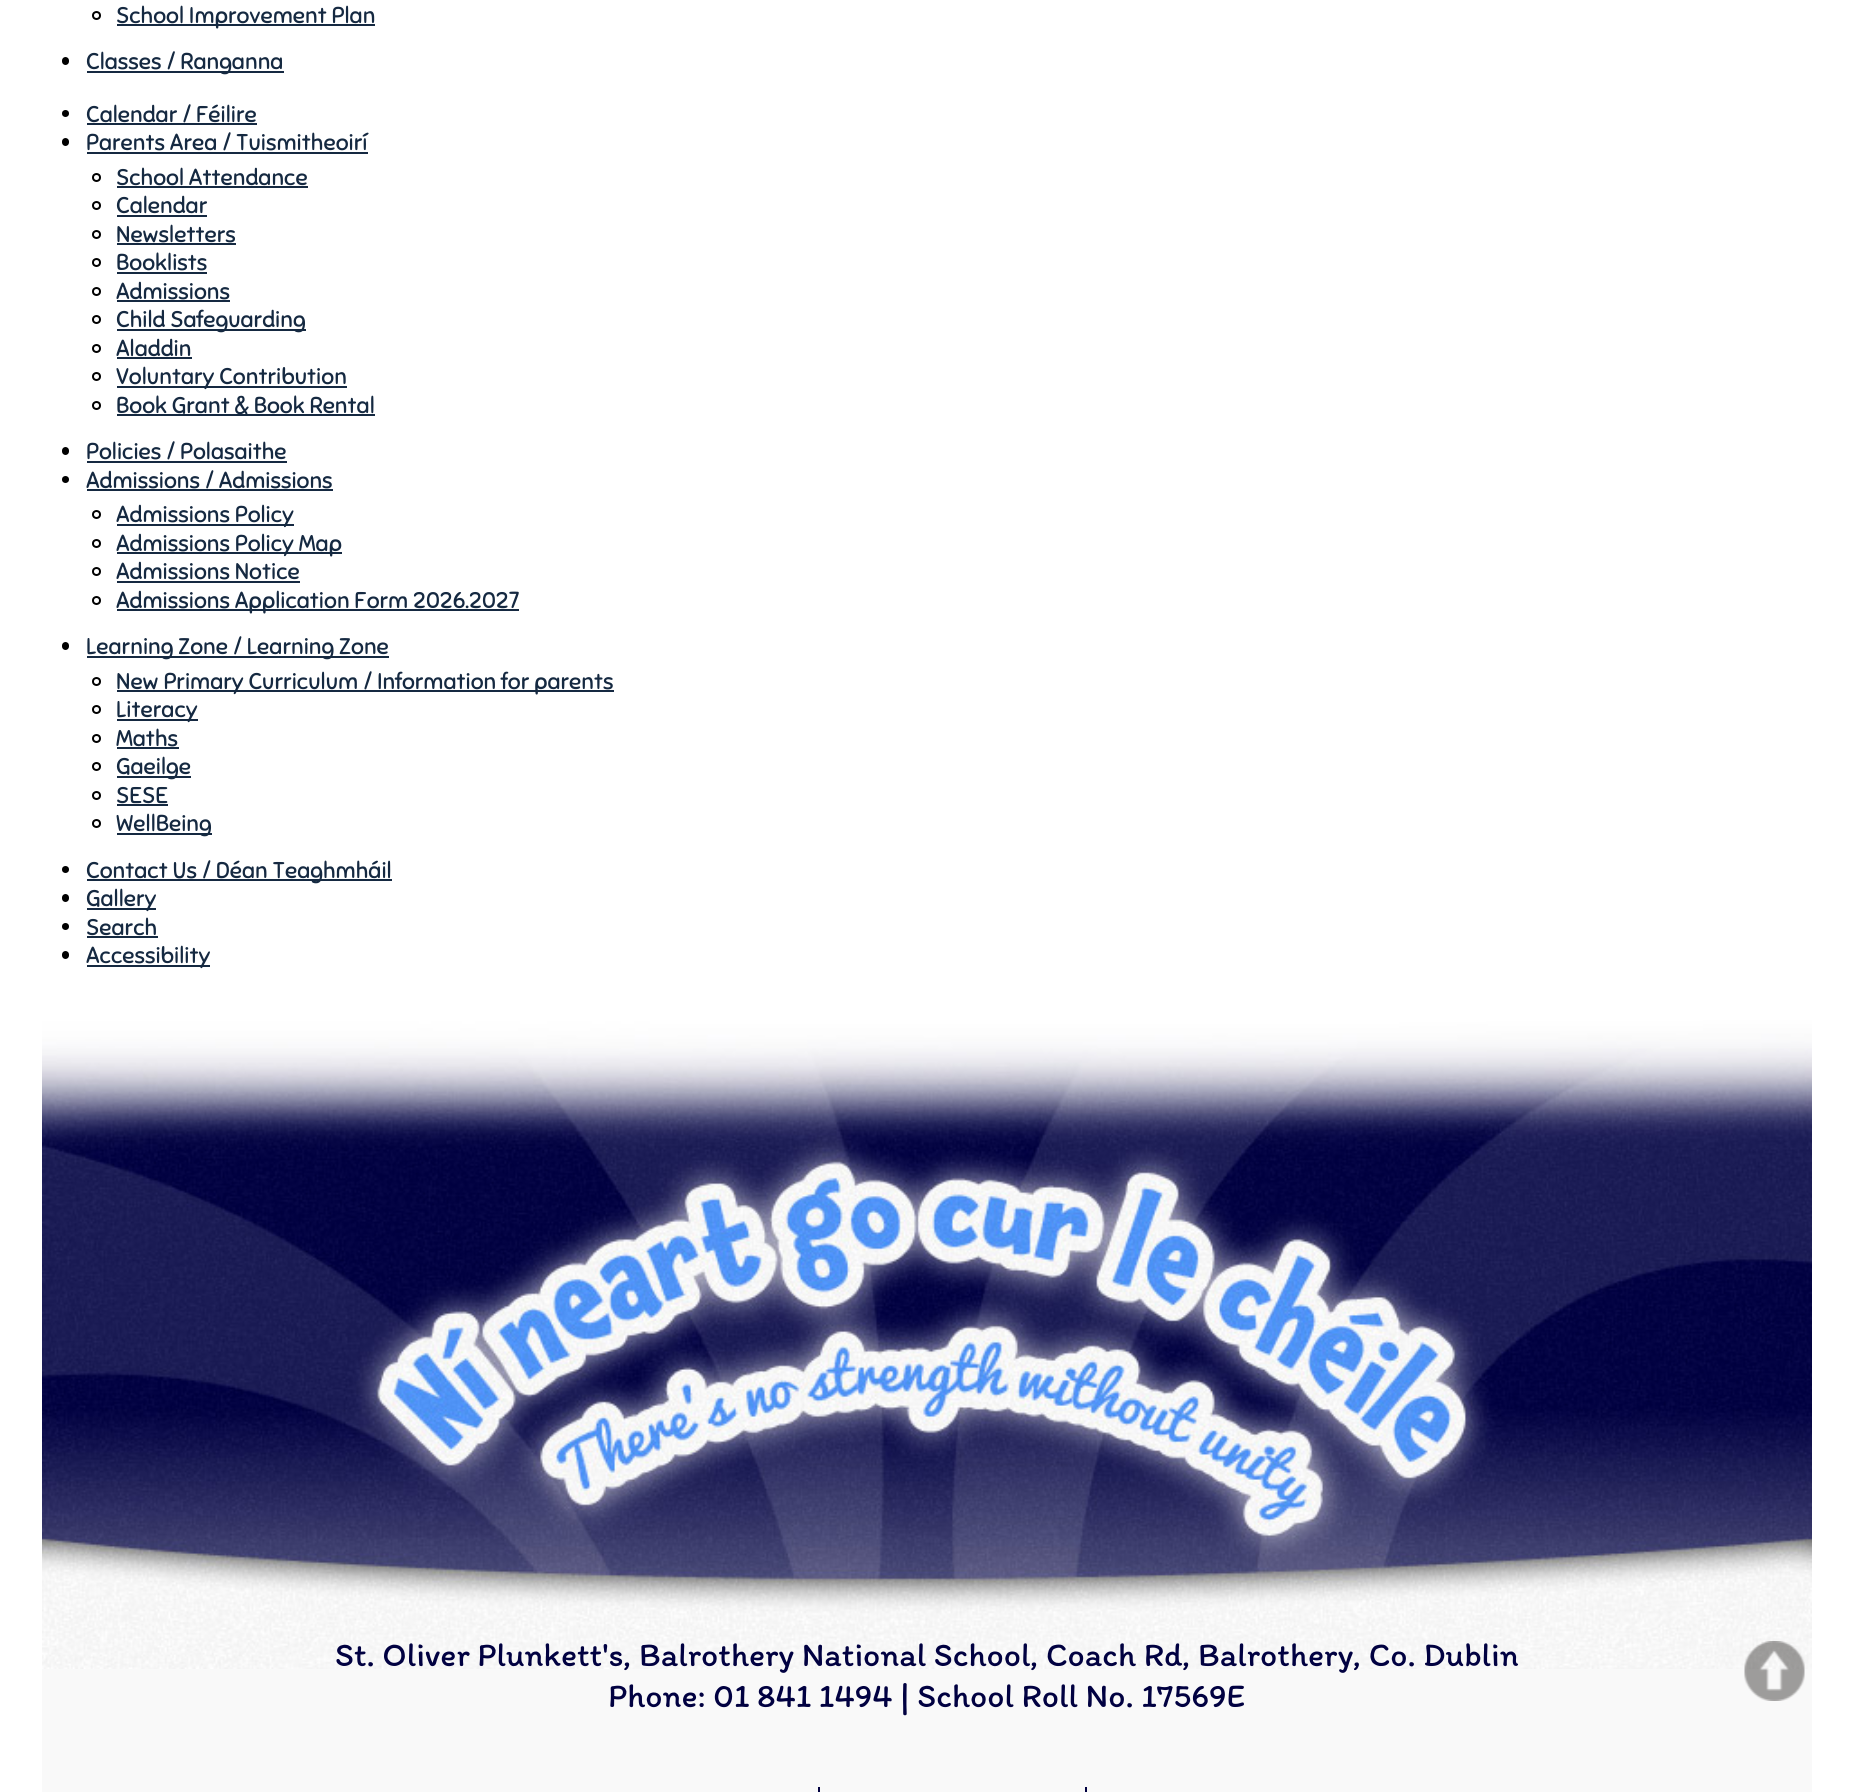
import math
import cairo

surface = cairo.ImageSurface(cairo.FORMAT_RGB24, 1852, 1792)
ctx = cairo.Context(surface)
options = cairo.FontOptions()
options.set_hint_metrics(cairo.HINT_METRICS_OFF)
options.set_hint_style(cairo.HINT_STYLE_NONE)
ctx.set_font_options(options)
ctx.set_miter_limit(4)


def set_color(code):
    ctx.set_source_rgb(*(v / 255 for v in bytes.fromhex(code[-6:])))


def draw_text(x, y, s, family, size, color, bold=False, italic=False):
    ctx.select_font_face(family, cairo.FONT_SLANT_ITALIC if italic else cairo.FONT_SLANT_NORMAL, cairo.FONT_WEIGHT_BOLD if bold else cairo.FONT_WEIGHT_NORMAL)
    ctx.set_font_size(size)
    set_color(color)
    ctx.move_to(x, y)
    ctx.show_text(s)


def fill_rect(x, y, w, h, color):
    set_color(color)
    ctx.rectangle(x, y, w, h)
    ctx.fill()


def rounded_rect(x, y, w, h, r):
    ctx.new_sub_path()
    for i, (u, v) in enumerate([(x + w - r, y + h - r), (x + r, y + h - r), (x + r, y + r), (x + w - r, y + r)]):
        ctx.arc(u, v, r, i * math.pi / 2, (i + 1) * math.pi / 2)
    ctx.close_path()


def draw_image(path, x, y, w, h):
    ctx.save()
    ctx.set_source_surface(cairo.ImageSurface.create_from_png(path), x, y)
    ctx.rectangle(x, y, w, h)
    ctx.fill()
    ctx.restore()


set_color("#ffffff")
ctx.paint()
ctx.arc(96.5, 15.5, 3.5, 0, 2 * math.pi)
set_color("#000000")
ctx.stroke()
fill_rect(117, 24, 258, 2, "#152941")
draw_text(116, 23, "School Improvement Plan", "Sniglet", 22.8, "#152941")
set_color("#000000")
rounded_rect(62, 57, 7, 8, 3.5)
ctx.fill()
fill_rect(87, 71, 197, 2, "#152941")
draw_text(86, 69, "Classes / Ranganna", "Sniglet", 22.8, "#152941")
set_color("#000000")
ctx.new_path()
ctx.arc(65.5, 113.5, 3.5, 0, 2 * math.pi)
ctx.fill()
draw_text(86, 122, "Calendar / Féilire", "Sniglet", 22.8, "#152941")
fill_rect(87, 123, 170, 2, "#152941")
set_color("#000000")
rounded_rect(62, 138, 7, 8, 3.5)
ctx.fill()
draw_text(86, 150, "Parents Area / Tuismitheoirí", "Sniglet", 22.8, "#152941")
fill_rect(87, 152, 281, 2, "#152941")
ctx.new_path()
ctx.arc(96.5, 177.5, 3.5, 0, 2 * math.pi)
set_color("#000000")
ctx.stroke()
draw_text(116, 185, "School Attendance", "Sniglet", 22.8, "#152941")
fill_rect(117, 186, 191, 2, "#152941")
ctx.new_path()
ctx.arc(96.5, 205.5, 3.5, 0, 2 * math.pi)
set_color("#000000")
ctx.stroke()
draw_text(116, 213, "Calendar", "Sniglet", 22.8, "#152941")
fill_rect(117, 215, 90, 2, "#152941")
ctx.new_path()
ctx.arc(96.5, 234.5, 3.5, 0, 2 * math.pi)
set_color("#000000")
ctx.stroke()
draw_text(116, 242, "Newsletters", "Sniglet", 22.8, "#152941")
fill_rect(117, 243, 119, 2, "#152941")
ctx.new_path()
ctx.arc(96.5, 262.5, 3.5, 0, 2 * math.pi)
set_color("#000000")
ctx.stroke()
draw_text(116, 270, "Booklists", "Sniglet", 22.8, "#152941")
fill_rect(117, 272, 90, 2, "#152941")
ctx.new_path()
ctx.arc(96.5, 291.5, 3.5, 0, 2 * math.pi)
set_color("#000000")
ctx.stroke()
draw_text(116, 299, "Admissions", "Sniglet", 22.8, "#152941")
fill_rect(117, 300, 113, 2, "#152941")
ctx.new_path()
ctx.arc(96.5, 319.5, 3.5, 0, 2 * math.pi)
set_color("#000000")
ctx.stroke()
fill_rect(117, 329, 189, 2, "#152941")
draw_text(116, 327, "Child Safeguarding", "Sniglet", 22.8, "#152941")
ctx.new_path()
ctx.arc(96.5, 348.5, 3.5, 0, 2 * math.pi)
set_color("#000000")
ctx.stroke()
draw_text(116, 356, "Aladdin", "Sniglet", 22.8, "#152941")
fill_rect(117, 357, 75, 2, "#152941")
ctx.new_path()
ctx.arc(96.5, 376.5, 3.5, 0, 2 * math.pi)
set_color("#000000")
ctx.stroke()
fill_rect(117, 386, 230, 2, "#152941")
draw_text(116, 384, "Voluntary Contribution", "Sniglet", 22.8, "#152941")
ctx.new_path()
ctx.arc(96.5, 405.5, 3.5, 0, 2 * math.pi)
set_color("#000000")
ctx.stroke()
fill_rect(117, 414, 258, 2, "#152941")
draw_text(116, 413, "Book Grant & Book Rental", "Sniglet", 22.8, "#152941")
set_color("#000000")
rounded_rect(62, 447, 7, 8, 3.5)
ctx.fill()
draw_text(86, 459, "Policies / Polasaithe", "Sniglet", 22.8, "#152941")
fill_rect(87, 461, 200, 2, "#152941")
set_color("#000000")
ctx.new_path()
ctx.arc(65.5, 479.5, 3.5, 0, 2 * math.pi)
ctx.fill()
draw_text(86, 488, "Admissions / Admissions", "Sniglet", 22.8, "#152941")
fill_rect(87, 489, 246, 2, "#152941")
ctx.new_path()
ctx.arc(96.5, 514.5, 3.5, 0, 2 * math.pi)
set_color("#000000")
ctx.stroke()
fill_rect(117, 524, 177, 2, "#152941")
draw_text(116, 522, "Admissions Policy", "Sniglet", 22.8, "#152941")
ctx.new_path()
ctx.arc(96.5, 543.5, 3.5, 0, 2 * math.pi)
set_color("#000000")
ctx.stroke()
fill_rect(117, 552, 225, 2, "#152941")
draw_text(116, 551, "Admissions Policy Map", "Sniglet", 22.8, "#152941")
ctx.new_path()
ctx.arc(96.5, 571.5, 3.5, 0, 2 * math.pi)
set_color("#000000")
ctx.stroke()
draw_text(116, 579, "Admissions Notice", "Sniglet", 22.8, "#152941")
fill_rect(117, 581, 183, 2, "#152941")
ctx.new_path()
ctx.arc(96.5, 600.5, 3.5, 0, 2 * math.pi)
set_color("#000000")
ctx.stroke()
fill_rect(117, 609, 402, 2, "#152941")
draw_text(116, 608, "Admissions Application Form 2026.2027", "Sniglet", 22.8, "#152941")
set_color("#000000")
rounded_rect(62, 642, 7, 8, 3.5)
ctx.fill()
fill_rect(87, 656, 302, 2, "#152941")
draw_text(86, 654, "Learning Zone / Learning Zone", "Sniglet", 22.8, "#152941")
ctx.new_path()
ctx.arc(96.5, 681.5, 3.5, 0, 2 * math.pi)
set_color("#000000")
ctx.stroke()
fill_rect(117, 690, 497, 2, "#152941")
draw_text(116, 689, "New Primary Curriculum / Information for parents", "Sniglet", 22.8, "#152941")
ctx.new_path()
ctx.arc(96.5, 709.5, 3.5, 0, 2 * math.pi)
set_color("#000000")
ctx.stroke()
fill_rect(117, 719, 81, 2, "#152941")
draw_text(116, 717, "Literacy", "Sniglet", 22.8, "#152941")
ctx.new_path()
ctx.arc(96.5, 738.5, 3.5, 0, 2 * math.pi)
set_color("#000000")
ctx.stroke()
draw_text(116, 746, "Maths", "Sniglet", 22.8, "#152941")
fill_rect(117, 747, 62, 2, "#152941")
ctx.new_path()
ctx.arc(96.5, 766.5, 3.5, 0, 2 * math.pi)
set_color("#000000")
ctx.stroke()
fill_rect(117, 776, 74, 2, "#152941")
draw_text(116, 774, "Gaeilge", "Sniglet", 22.8, "#152941")
ctx.new_path()
ctx.arc(96.5, 795.5, 3.5, 0, 2 * math.pi)
set_color("#000000")
ctx.stroke()
draw_text(116, 803, "SESE", "Sniglet", 22.8, "#152941")
fill_rect(117, 804, 51, 2, "#152941")
ctx.new_path()
ctx.arc(96.5, 823.5, 3.5, 0, 2 * math.pi)
set_color("#000000")
ctx.stroke()
fill_rect(117, 833, 95, 2, "#152941")
draw_text(116, 831, "WellBeing", "Sniglet", 22.8, "#152941")
set_color("#000000")
ctx.new_path()
ctx.arc(65.5, 869.5, 3.5, 0, 2 * math.pi)
ctx.fill()
fill_rect(87, 879, 305, 2, "#152941")
draw_text(86, 878, "Contact Us / Déan Teaghmháil", "Sniglet", 22.8, "#152941")
set_color("#000000")
rounded_rect(62, 894, 7, 8, 3.5)
ctx.fill()
fill_rect(87, 908, 69, 2, "#152941")
draw_text(86, 906, "Gallery", "Sniglet", 22.8, "#152941")
set_color("#000000")
ctx.new_path()
ctx.arc(65.5, 926.5, 3.5, 0, 2 * math.pi)
ctx.fill()
draw_text(86, 935, "Search", "Sniglet", 22.8, "#152941")
fill_rect(87, 936, 71, 2, "#152941")
set_color("#000000")
rounded_rect(62, 951, 7, 8, 3.5)
ctx.fill()
fill_rect(87, 965, 123, 2, "#152941")
draw_text(86, 963, "Accessibility", "Sniglet", 22.8, "#152941")
fill_rect(42, 1669, 1770, 123, "#f9f9f9")
draw_image("assets/img2.png", 42, 1020, 1770, 649)
draw_image("assets/img1.png", 1744, 1641, 61, 60)
fill_rect(818, 1787, 2, 5, "#010141")
fill_rect(1085, 1787, 2, 5, "#010141")
draw_text(335, 1666, "St. Oliver Plunkett's, Balrothery National School, Coach Rd, Balrothery, Co. Dublin", "Itim", 33.6, "#010141")
draw_text(608, 1707, "Phone: 01 841 1494 | School Roll No. 17569E", "Itim", 33.6, "#010141")
surface.write_to_png("output.png")
